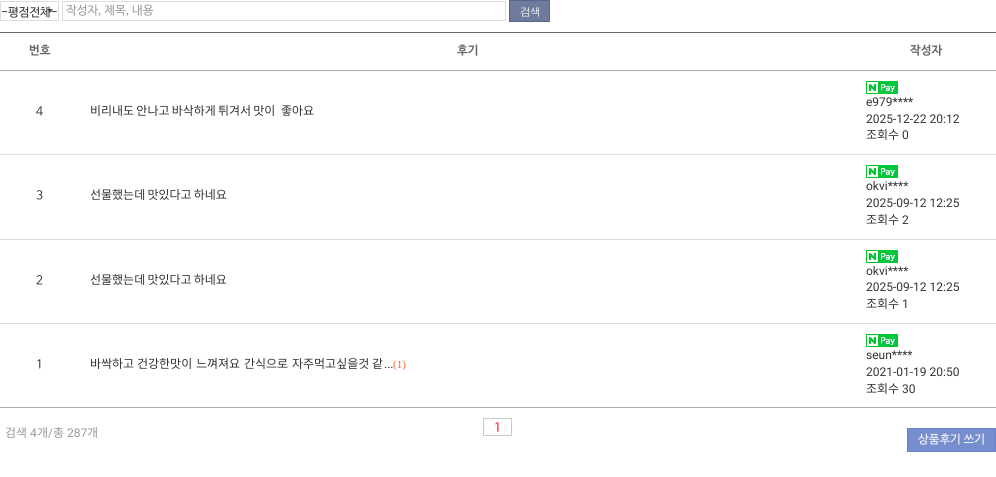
import math
import cairo

surface = cairo.ImageSurface(cairo.FORMAT_RGB24, 996, 477)
ctx = cairo.Context(surface)
options = cairo.FontOptions()
options.set_hint_metrics(cairo.HINT_METRICS_OFF)
options.set_hint_style(cairo.HINT_STYLE_NONE)
ctx.set_font_options(options)
ctx.set_miter_limit(4)


def set_color(code):
    ctx.set_source_rgb(*(v / 255 for v in bytes.fromhex(code[-6:])))


def draw_text(x, y, s, family, size, color, bold=False, italic=False):
    ctx.select_font_face(family, cairo.FONT_SLANT_ITALIC if italic else cairo.FONT_SLANT_NORMAL, cairo.FONT_WEIGHT_BOLD if bold else cairo.FONT_WEIGHT_NORMAL)
    ctx.set_font_size(size)
    set_color(color)
    ctx.move_to(x, y)
    ctx.show_text(s)


def draw_spaced(x, y, s, letter, word):
    ctx.move_to(x, y)
    for ch in s:
        ctx.show_text(ch)
        ctx.rel_move_to(letter + word * (ch == ' '), 0)


def fill_rect(x, y, w, h, color):
    set_color(color)
    ctx.rectangle(x, y, w, h)
    ctx.fill()


def draw_image(path, x, y, w, h):
    ctx.save()
    ctx.set_source_surface(cairo.ImageSurface.create_from_png(path), x, y)
    ctx.rectangle(x, y, w, h)
    ctx.fill()
    ctx.restore()


set_color("#ffffff")
ctx.paint()
draw_image("assets/img1.png", 47, 9, 6, 4)
ctx.rectangle(0.5, 1.5, 58, 19)
set_color("#dddddd")
ctx.set_line_width(1)
ctx.stroke()
draw_text(1, 16, "-평점전체-", "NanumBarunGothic", 12, "#333333")
ctx.rectangle(62.5, 1.5, 443, 19)
set_color("#dddddd")
ctx.stroke()
draw_text(66, 14, "작성자, 제목, 내용", "NanumBarunGothic", 12, "#999999")
set_color("#6f7b9c")
ctx.rectangle(509.5, 0.5, 40, 21)
ctx.fill_preserve()
set_color("#58668d")
ctx.stroke()
ctx.select_font_face("Dotum")
ctx.set_font_size(11)
set_color("#ffffff")
draw_spaced(520, 16, "검색", -1, 0)
fill_rect(0, 32, 996, 1, "#666666")
fill_rect(0, 407, 996, 1, "#aaaaaa")
fill_rect(0, 70, 996, 1, "#aaaaaa")
draw_text(29, 54, "번호", "NanumBarunGothic", 12, "#666666", bold=True)
draw_text(457, 54, "후기", "NanumBarunGothic", 12, "#666666", bold=True)
draw_text(910, 54, "작성자", "NanumBarunGothic", 12, "#666666", bold=True)
draw_text(36, 115, "4", "NanumBarunGothic", 12, "#333333")
ctx.select_font_face("Noto Sans KR")
draw_spaced(90, 115, "비리내도 안나고 바삭하게 튀겨서 맛이", 0, -0.5)
draw_spaced(281, 115, "좋아요", 0, -0.5)
draw_image("assets/img2.png", 866, 81, 32, 13)
draw_text(866, 106, "e979****", "Roboto", 12, "#333333")
draw_text(866, 123, "2025-12-22 20:12", "Roboto", 12, "#333333")
draw_text(866, 139, "조회수", "Noto Sans KR", 12, "#333333")
draw_text(902, 139, "0", "Roboto", 12, "#333333")
fill_rect(0, 154, 80, 1, "#dddddd")
draw_text(36, 199, "3", "NanumBarunGothic", 12, "#333333")
ctx.select_font_face("Noto Sans KR")
draw_spaced(90, 199, "선물했는데 맛있다고 하네요", 0, -0.5)
fill_rect(80, 154, 916, 1, "#dddddd")
draw_image("assets/img2.png", 866, 165, 32, 13)
draw_text(866, 190, "okvi****", "Roboto", 12, "#333333")
draw_text(866, 207, "2025-09-12 12:25", "Roboto", 12, "#333333")
draw_text(866, 224, "조회수", "Noto Sans KR", 12, "#333333")
draw_text(902, 224, "2", "Roboto", 12, "#333333")
fill_rect(0, 239, 80, 1, "#dddddd")
draw_text(36, 284, "2", "NanumBarunGothic", 12, "#333333")
ctx.select_font_face("Noto Sans KR")
draw_spaced(90, 284, "선물했는데 맛있다고 하네요", 0, -0.5)
fill_rect(80, 239, 916, 1, "#dddddd")
draw_image("assets/img2.png", 866, 250, 32, 13)
draw_text(866, 275, "okvi****", "Roboto", 12, "#333333")
draw_text(866, 291, "2025-09-12 12:25", "Roboto", 12, "#333333")
draw_text(866, 308, "조회수", "Noto Sans KR", 12, "#333333")
draw_text(902, 308, "1", "Roboto", 12, "#333333")
fill_rect(0, 323, 80, 1, "#dddddd")
draw_text(36, 368, "1", "NanumBarunGothic", 12, "#333333")
draw_text(90, 368, "바싹하고", "Noto Sans KR", 12, "#333333")
draw_text(137, 368, "건강한맛이", "Noto Sans KR", 12, "#333333")
draw_text(196, 368, "느껴져요", "Noto Sans KR", 12, "#333333")
draw_text(244, 368, "간식으로", "Noto Sans KR", 12, "#333333")
draw_text(292, 368, "자주먹고싶을것", "Noto Sans KR", 12, "#333333")
draw_text(372, 368, "같", "Noto Sans KR", 12, "#333333")
draw_text(384, 368, "...", "Roboto", 12, "#333333")
draw_text(393, 368, "(1)", "Liberation Serif", 11, "#fc6138")
fill_rect(80, 323, 916, 1, "#dddddd")
draw_image("assets/img2.png", 866, 334, 32, 13)
draw_text(866, 359, "seun****", "Roboto", 12, "#333333")
draw_text(866, 376, "2021-01-19 20:50", "Roboto", 12, "#333333")
draw_text(866, 393, "조회수", "Noto Sans KR", 12, "#333333")
draw_text(902, 393, "30", "Roboto", 12, "#333333")
draw_text(5, 437, "검색", "Noto Sans KR", 12, "#999999")
draw_text(30, 437, "4", "Roboto", 12, "#999999")
draw_text(37, 437, "개", "Noto Sans KR", 12, "#999999")
draw_text(48, 437, "/", "Roboto", 12, "#999999")
draw_text(53, 437, "총", "Noto Sans KR", 12, "#999999")
draw_text(67, 437, "287", "Roboto", 12, "#999999")
draw_text(87, 437, "개", "Noto Sans KR", 12, "#999999")
ctx.rectangle(483.5, 418.5, 28, 17)
set_color("#c8c8c8")
ctx.stroke()
draw_text(494, 431, "1", "NanumBarunGothic", 12, "#fd454d", bold=True)
set_color("#778ece")
ctx.rectangle(907.5, 428.5, 88, 23)
ctx.fill_preserve()
set_color("#6a83c8")
ctx.stroke()
draw_text(918, 443, "상품후기 쓰기", "NanumBarunGothic", 12, "#ffffff")
surface.write_to_png("output.png")
